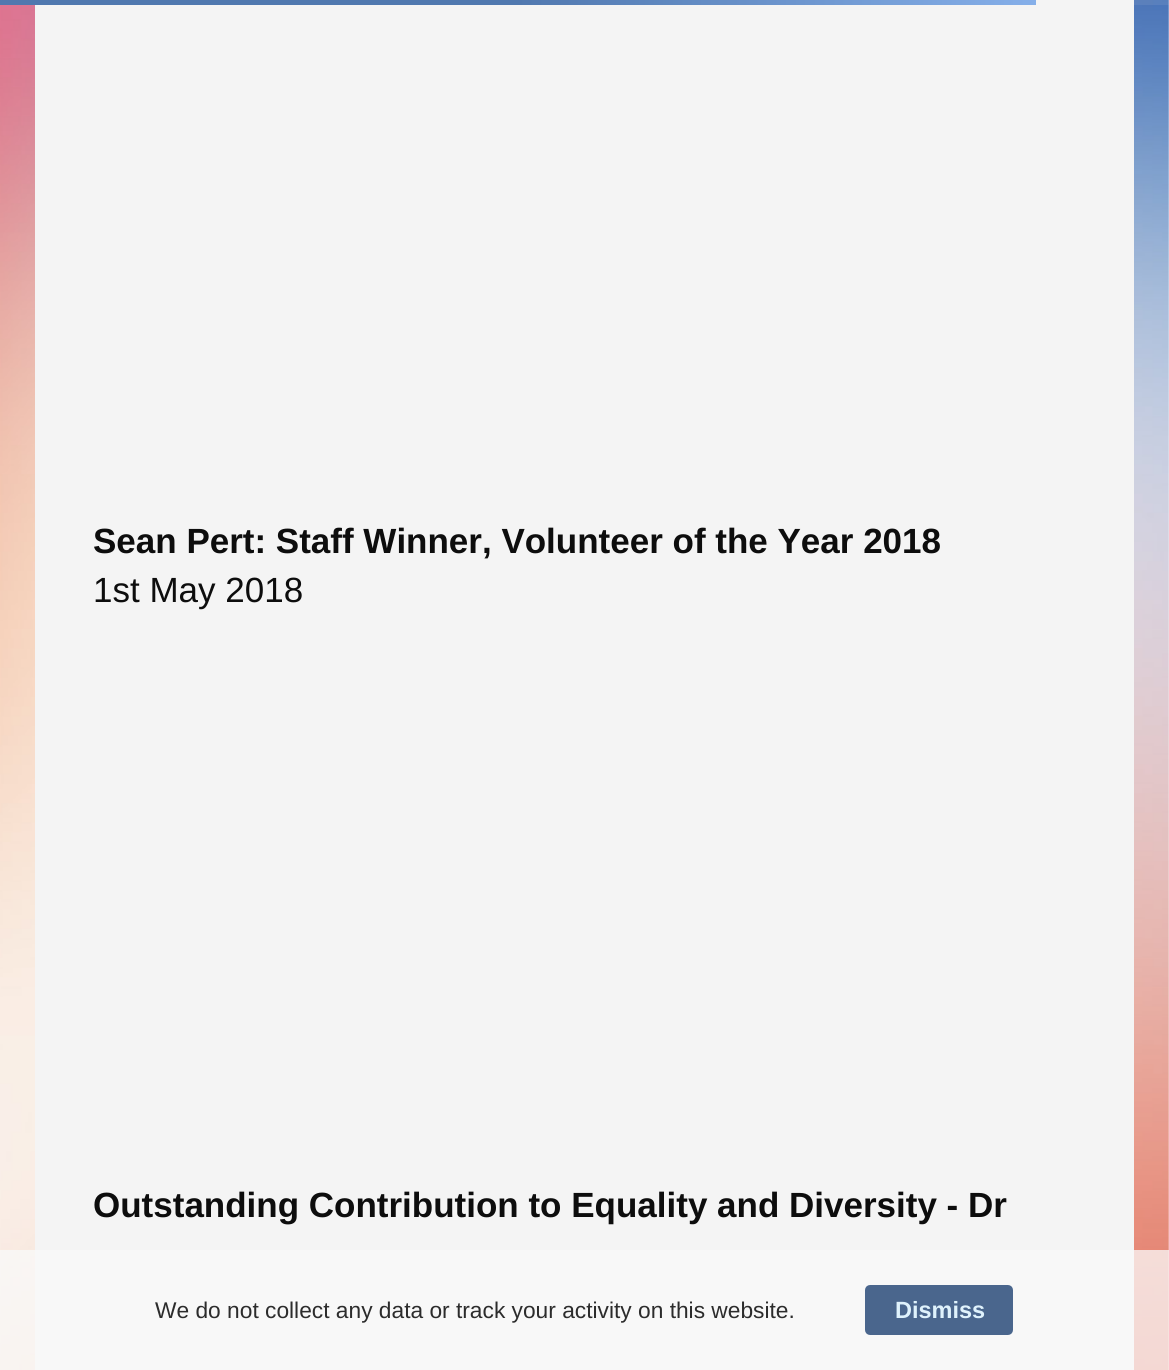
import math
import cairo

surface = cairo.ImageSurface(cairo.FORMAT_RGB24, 1169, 1370)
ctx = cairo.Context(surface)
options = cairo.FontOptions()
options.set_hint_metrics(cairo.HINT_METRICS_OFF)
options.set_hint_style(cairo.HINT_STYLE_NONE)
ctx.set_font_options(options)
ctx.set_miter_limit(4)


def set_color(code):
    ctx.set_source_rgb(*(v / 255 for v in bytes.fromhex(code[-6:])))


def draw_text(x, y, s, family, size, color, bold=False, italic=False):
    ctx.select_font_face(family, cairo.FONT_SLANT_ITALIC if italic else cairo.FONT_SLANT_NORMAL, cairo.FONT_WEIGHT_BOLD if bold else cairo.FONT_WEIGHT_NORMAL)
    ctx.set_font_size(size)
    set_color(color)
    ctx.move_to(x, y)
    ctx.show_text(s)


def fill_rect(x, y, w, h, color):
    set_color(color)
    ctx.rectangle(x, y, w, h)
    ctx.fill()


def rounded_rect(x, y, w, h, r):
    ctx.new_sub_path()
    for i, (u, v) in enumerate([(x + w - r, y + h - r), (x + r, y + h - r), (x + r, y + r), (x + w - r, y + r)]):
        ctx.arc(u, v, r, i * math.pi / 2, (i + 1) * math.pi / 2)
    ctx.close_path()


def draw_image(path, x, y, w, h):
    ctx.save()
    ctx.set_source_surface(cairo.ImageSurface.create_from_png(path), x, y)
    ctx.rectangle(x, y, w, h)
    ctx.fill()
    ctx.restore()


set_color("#ffffff")
ctx.paint()
draw_image("assets/img1.png", 0, 0, 1169, 1370)
ctx.set_source_rgba(0.886, 0.886, 0.886, 0.1)
ctx.rectangle(1134, 0, 35, 5)
ctx.fill()
fill_rect(35, 0, 1099, 1370, "#f4f4f4")
gradient = cairo.LinearGradient(0, 2.6, 1036, 2.6)
gradient.add_color_stop_rgba(0.5, 0.314, 0.471, 0.686, 1)
gradient.add_color_stop_rgba(1, 0.522, 0.686, 0.914, 1)
ctx.set_source(gradient)
ctx.rectangle(0, 0, 1036, 5)
ctx.fill()
draw_text(93, 553, "Sean Pert: Staff Winner, Volunteer of the Year 2018", "Liberation Sans", 35, "#0d0d0d", bold=True)
draw_text(93, 602, "1st May 2018", "Liberation Sans", 35, "#0d0d0d")
draw_text(93, 1217, "Outstanding Contribution to Equality and Diversity - Dr", "Liberation Sans", 35, "#0d0d0d", bold=True)
ctx.set_source_rgba(0.976, 0.976, 0.976, 0.75)
ctx.rectangle(0, 1250, 1169, 120)
ctx.fill()
draw_text(155, 1318, "We do not collect any data or track your activity on this website.", "Liberation Sans", 22.75, "#2c2c2c")
set_color("#4a668d")
rounded_rect(867, 1287, 144, 46, 3)
ctx.fill_preserve()
ctx.set_line_width(4)
ctx.stroke()
draw_text(895, 1318, "Dismiss", "Liberation Sans", 23.5, "#dff2fc", bold=True)
surface.write_to_png("output.png")
